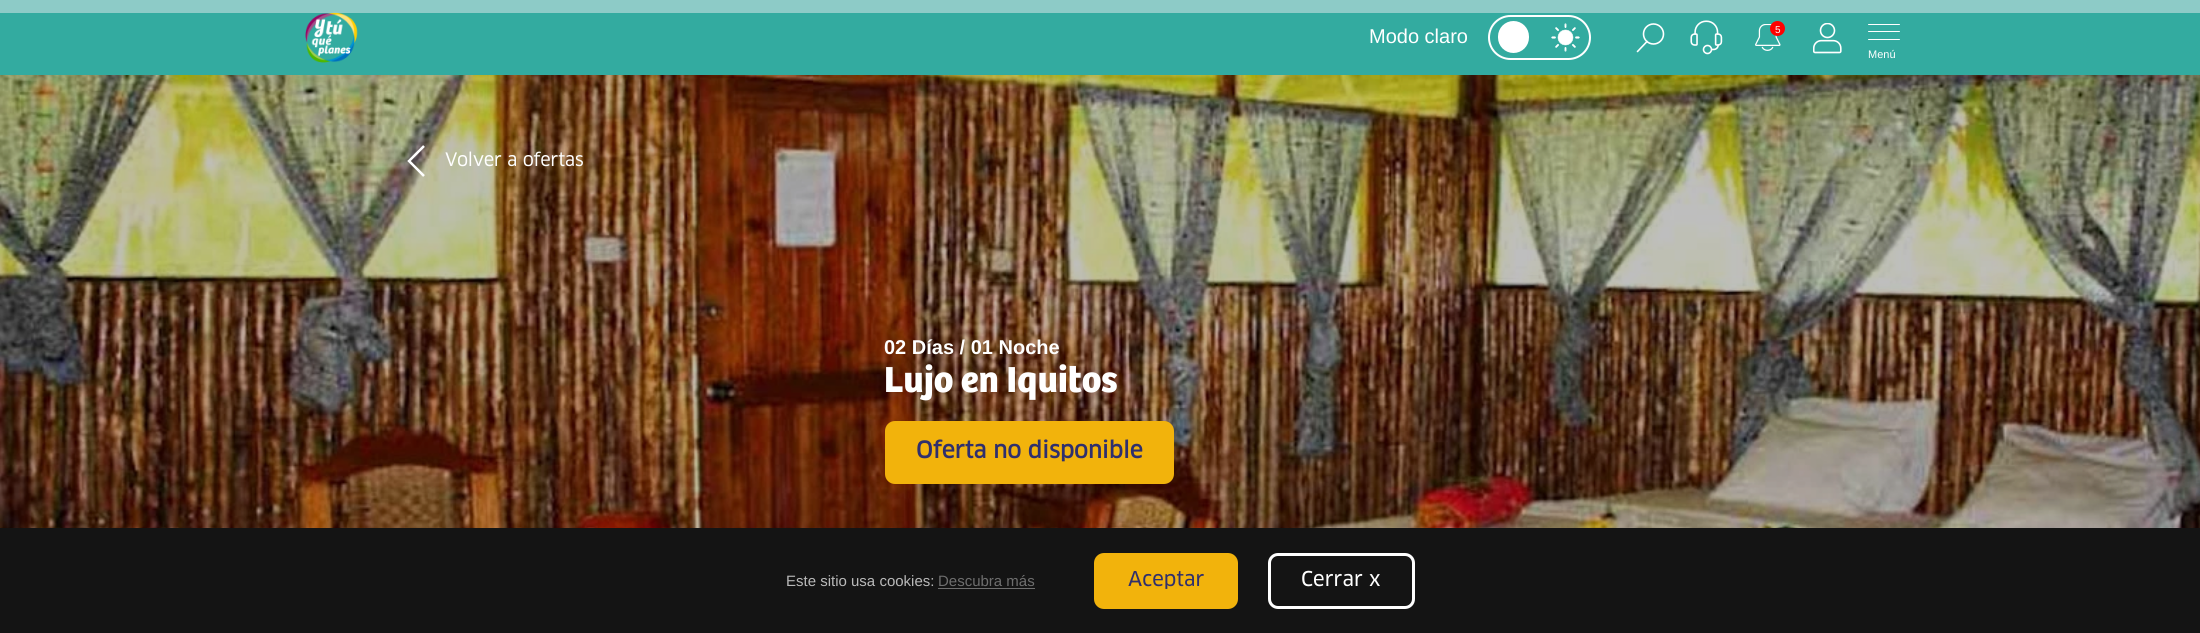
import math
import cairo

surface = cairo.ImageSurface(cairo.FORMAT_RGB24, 2200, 633)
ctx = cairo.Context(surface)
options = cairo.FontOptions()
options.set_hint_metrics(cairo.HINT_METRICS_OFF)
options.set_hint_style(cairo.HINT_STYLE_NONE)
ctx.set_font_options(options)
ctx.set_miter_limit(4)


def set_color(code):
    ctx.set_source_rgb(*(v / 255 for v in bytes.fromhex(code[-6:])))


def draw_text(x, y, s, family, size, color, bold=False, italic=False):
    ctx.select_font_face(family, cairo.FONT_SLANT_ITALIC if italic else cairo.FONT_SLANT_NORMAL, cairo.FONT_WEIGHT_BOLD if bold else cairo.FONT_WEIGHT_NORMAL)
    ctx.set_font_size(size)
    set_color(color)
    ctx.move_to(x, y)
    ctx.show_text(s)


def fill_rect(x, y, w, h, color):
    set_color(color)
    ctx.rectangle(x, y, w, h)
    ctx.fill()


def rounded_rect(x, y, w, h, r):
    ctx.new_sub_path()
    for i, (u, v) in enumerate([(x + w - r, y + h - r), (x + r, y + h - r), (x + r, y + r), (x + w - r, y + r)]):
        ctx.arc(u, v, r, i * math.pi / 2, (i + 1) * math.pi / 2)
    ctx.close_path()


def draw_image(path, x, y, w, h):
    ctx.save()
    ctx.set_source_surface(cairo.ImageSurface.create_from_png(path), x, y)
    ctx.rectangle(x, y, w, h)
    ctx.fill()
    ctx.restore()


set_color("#ffffff")
ctx.paint()
fill_rect(0, 0, 2200, 75, "#33aba0")
draw_image("assets/img1.png", 305, 12, 53, 51)
ctx.set_source_rgba(0.914, 0.925, 0.937, 0.5)
ctx.rectangle(0, 0, 2200, 13)
ctx.fill()
draw_text(1369, 43, "Modo claro", "Liberation Sans", 20, "#ffffff")
rounded_rect(1489, 16, 101, 43, 21.5)
ctx.stroke()
draw_image("assets/img3.png", 1503, 25, 1, 1)
rounded_rect(1500, 23, 27, 28, 13.5)
ctx.fill_preserve()
ctx.set_line_width(4)
ctx.stroke()
draw_image("assets/img2.png", 1551, 23, 29, 29)
ctx.new_path()
ctx.move_to(1647, 41.5)
ctx.line_to(1637.5, 51.5)
ctx.set_line_width(1.6)
ctx.set_line_cap(cairo.LINE_CAP_ROUND)
ctx.stroke()
ctx.arc(1653.5, 34, 10, 0, 2 * math.pi)
ctx.set_line_cap(cairo.LINE_CAP_BUTT)
ctx.stroke()
draw_image("assets/img4.png", 1690, 20, 33, 35)
draw_image("assets/img5.png", 1755, 24, 26, 27)
set_color("#ff0000")
ctx.arc(1777.5, 28.5, 7.5, 0, 2 * math.pi)
ctx.fill()
draw_text(1775, 33, "5", "Liberation Sans", 10, "#ffffff")
draw_image("assets/img6.png", 1813, 23, 29, 31)
rounded_rect(1868, 24, 32, 1, 0.5)
ctx.fill()
rounded_rect(1868, 31, 32, 1, 0.5)
ctx.fill()
rounded_rect(1868, 39, 32, 1, 0.5)
ctx.fill()
draw_text(1868, 58, "Menú", "Liberation Sans", 11, "#ffffff")
draw_image("assets/img7.png", 0, 75, 2200, 453)
ctx.new_path()
ctx.move_to(424, 146)
ctx.line_to(409, 161)
ctx.line_to(424, 176)
ctx.set_line_width(2.5)
ctx.stroke()
draw_text(445, 166, "Volver a ofertas", "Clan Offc", 17.5, "#ffffff", bold=True)
draw_text(884, 354, "02 Días / 01 Noche", "Liberation Sans", 20, "#ffffff", bold=True)
draw_text(884, 392, "Lujo en Iquitos", "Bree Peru", 37.5, "#ffffff", bold=True)
set_color("#f2b30c")
rounded_rect(885, 421, 289, 63, 10)
ctx.fill()
draw_text(916, 458, "Oferta no disponible", "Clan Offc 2", 22.5, "#2f2f6d", bold=True)
fill_rect(0, 528, 2200, 105, "#141414")
draw_text(786, 586, "Este sitio usa cookies:", "Liberation Sans", 15, "#b9b9b9")
draw_text(938, 586, "Descubra más", "Liberation Sans", 15, "#6e6e6e")
fill_rect(938, 588, 97, 1, "#6e6e6e")
set_color("#f2b30c")
rounded_rect(1095.5, 554.5, 141, 53, 8.5)
ctx.fill_preserve()
ctx.set_line_width(3)
ctx.stroke()
draw_text(1128, 586, "Aceptar", "Clan Offc", 20, "#2f2f6d")
rounded_rect(1269.5, 554.5, 144, 53, 8.5)
set_color("#ffffff")
ctx.stroke()
draw_text(1301, 586, "Cerrar x", "Clan Offc", 20, "#ffffff")
surface.write_to_png("output.png")
